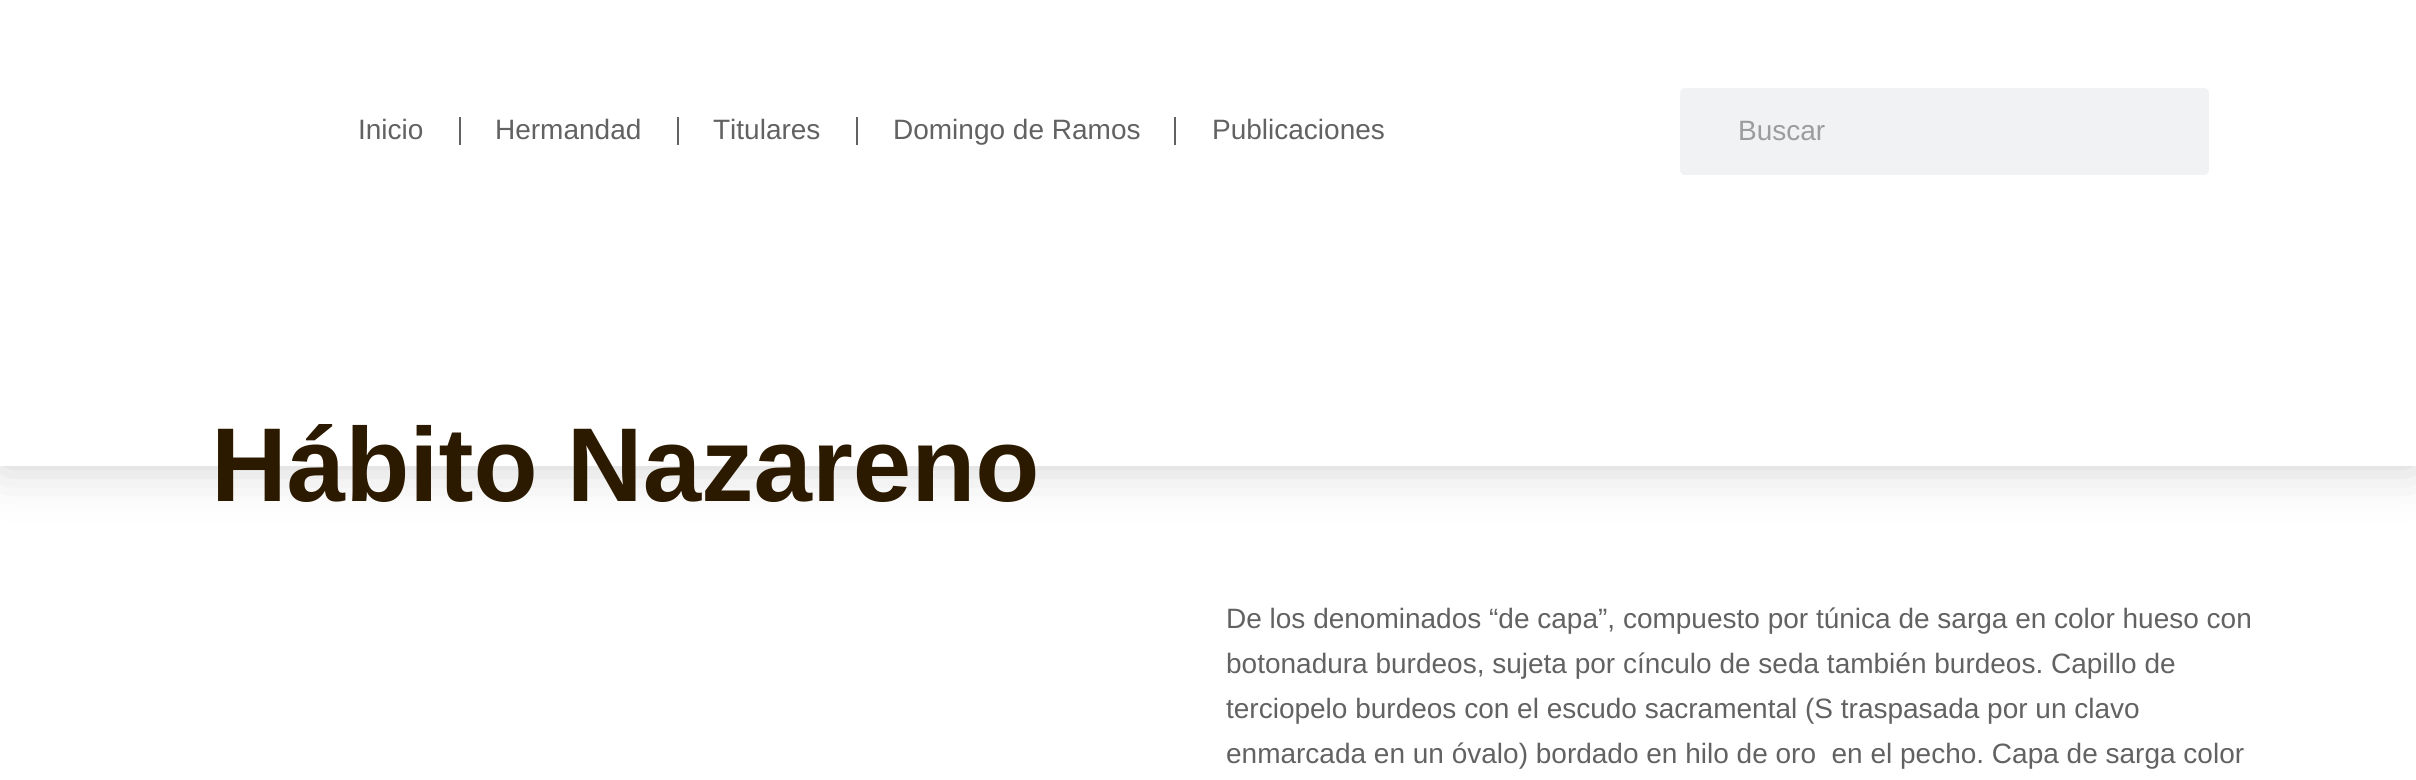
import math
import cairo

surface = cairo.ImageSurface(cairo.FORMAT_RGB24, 2416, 780)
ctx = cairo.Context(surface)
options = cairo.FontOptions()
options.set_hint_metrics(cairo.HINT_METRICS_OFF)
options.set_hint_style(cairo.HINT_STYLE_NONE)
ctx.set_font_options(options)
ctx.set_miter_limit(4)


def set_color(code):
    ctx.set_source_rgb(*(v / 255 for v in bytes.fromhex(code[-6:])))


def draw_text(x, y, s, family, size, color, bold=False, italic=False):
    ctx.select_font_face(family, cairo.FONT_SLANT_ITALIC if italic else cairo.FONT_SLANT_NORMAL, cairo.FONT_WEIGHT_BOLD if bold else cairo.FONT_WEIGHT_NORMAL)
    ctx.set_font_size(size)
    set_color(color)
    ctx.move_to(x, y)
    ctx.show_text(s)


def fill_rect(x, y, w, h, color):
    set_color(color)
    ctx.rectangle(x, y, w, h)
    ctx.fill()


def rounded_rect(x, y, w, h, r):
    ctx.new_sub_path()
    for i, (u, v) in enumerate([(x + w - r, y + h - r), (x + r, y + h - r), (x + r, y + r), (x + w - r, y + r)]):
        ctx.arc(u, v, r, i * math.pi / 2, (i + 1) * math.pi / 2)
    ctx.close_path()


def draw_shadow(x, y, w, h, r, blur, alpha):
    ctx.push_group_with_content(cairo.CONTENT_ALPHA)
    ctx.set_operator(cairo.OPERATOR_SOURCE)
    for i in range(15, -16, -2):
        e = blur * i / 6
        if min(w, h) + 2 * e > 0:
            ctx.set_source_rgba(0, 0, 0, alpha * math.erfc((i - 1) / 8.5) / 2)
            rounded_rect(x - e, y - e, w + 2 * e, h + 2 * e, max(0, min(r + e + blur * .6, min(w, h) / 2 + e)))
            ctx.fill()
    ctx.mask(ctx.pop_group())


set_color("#ffffff")
ctx.paint()
ctx.save()
ctx.set_fill_rule(cairo.FILL_RULE_EVEN_ODD)
ctx.new_path()
ctx.move_to(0, 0)
ctx.line_to(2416, 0)
ctx.line_to(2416, 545)
ctx.line_to(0, 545)
ctx.close_path()
ctx.move_to(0, -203)
ctx.line_to(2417, -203)
ctx.line_to(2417, 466)
ctx.line_to(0, 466)
ctx.close_path()
ctx.clip()
set_color("#000000")
draw_shadow(0, -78, 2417, 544, 0, 26, 0.2)
ctx.restore()
draw_text(358, 139, "Inicio", "Liberation Sans", 28, "#626262")
fill_rect(459, 117, 2, 28, "#626262")
draw_text(495, 139, "Hermandad", "Liberation Sans", 28, "#626262")
fill_rect(677, 117, 2, 28, "#626262")
draw_text(713, 139, "Titulares", "Liberation Sans", 28, "#626262")
fill_rect(856, 117, 2, 28, "#626262")
draw_text(893, 139, "Domingo de Ramos", "Liberation Sans", 28, "#626262")
fill_rect(1174, 117, 2, 28, "#626262")
draw_text(1212, 139, "Publicaciones", "Liberation Sans", 28, "#626262")
set_color("#f1f2f3")
rounded_rect(1680, 88, 529, 87, 5)
ctx.fill()
draw_text(1738, 140, "Buscar", "Liberation Sans", 28, "#9b9c9c")
draw_text(211, 501, "Hábito Nazareno", "Liberation Sans", 105, "#2c1a00", bold=True)
draw_text(1226, 628, "De los denominados “de capa”, compuesto por túnica de sarga en color hueso con", "Liberation Sans", 28, "#626262")
draw_text(1226, 673, "botonadura burdeos, sujeta por cínculo de seda también burdeos. Capillo de", "Liberation Sans", 28, "#626262")
draw_text(1226, 718, "terciopelo burdeos con el escudo sacramental (S traspasada por un clavo", "Liberation Sans", 28, "#626262")
draw_text(1226, 763, "enmarcada en un óvalo) bordado en hilo de oro  en el pecho. Capa de sarga color", "Liberation Sans", 28, "#626262")
surface.write_to_png("output.png")
